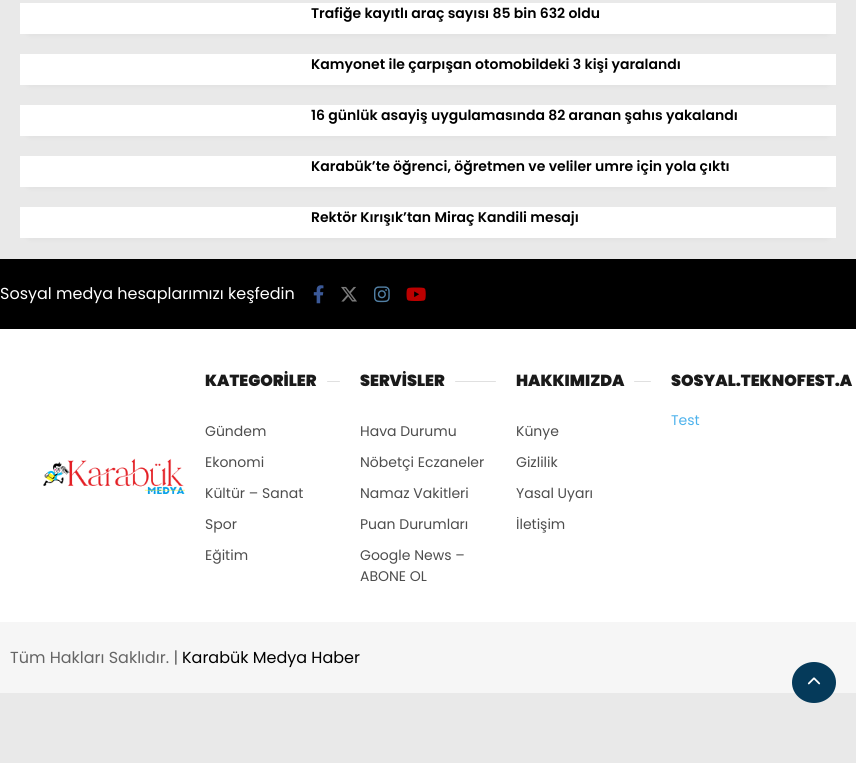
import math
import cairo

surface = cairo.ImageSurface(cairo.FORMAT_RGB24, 856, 763)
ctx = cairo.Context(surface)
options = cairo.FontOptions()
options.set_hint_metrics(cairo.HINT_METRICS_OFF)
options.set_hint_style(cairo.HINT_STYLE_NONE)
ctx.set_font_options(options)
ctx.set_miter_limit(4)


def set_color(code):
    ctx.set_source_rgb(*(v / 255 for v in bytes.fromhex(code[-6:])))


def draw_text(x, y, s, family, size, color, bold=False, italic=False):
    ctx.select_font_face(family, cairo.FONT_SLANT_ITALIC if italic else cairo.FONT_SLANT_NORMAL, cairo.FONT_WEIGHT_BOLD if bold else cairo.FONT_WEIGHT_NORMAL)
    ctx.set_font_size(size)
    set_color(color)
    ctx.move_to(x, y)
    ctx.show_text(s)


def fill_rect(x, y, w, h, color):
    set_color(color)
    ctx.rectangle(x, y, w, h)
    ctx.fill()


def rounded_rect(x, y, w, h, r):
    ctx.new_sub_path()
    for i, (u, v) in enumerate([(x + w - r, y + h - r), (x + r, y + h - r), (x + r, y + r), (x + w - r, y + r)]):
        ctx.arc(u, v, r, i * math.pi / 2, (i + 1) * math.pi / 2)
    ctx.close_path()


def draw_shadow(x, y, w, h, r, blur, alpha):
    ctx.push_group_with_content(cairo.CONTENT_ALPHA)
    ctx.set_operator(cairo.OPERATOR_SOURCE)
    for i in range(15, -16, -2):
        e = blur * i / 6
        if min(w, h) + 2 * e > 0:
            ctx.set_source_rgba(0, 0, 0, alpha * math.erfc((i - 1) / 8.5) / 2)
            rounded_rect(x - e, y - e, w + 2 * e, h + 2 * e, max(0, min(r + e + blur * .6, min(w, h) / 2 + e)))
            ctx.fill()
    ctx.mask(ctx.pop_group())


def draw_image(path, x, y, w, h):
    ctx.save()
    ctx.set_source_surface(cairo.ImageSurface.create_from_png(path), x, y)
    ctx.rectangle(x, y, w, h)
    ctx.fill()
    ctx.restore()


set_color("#e9e9e9")
ctx.paint()
set_color("#000000")
draw_shadow(30, 19, 796, 11, 0, 5, 0.16)
fill_rect(20, 3, 816, 31, "#ffffff")
draw_text(311, 18, "Trafiğe kayıtlı araç sayısı 85 bin 632 oldu", "Poppins SemiBold", 14, "#000000")
set_color("#000000")
draw_shadow(30, 70, 796, 11, 0, 5, 0.16)
fill_rect(20, 54, 816, 31, "#ffffff")
draw_text(311, 69, "Kamyonet ile çarpışan otomobildeki 3 kişi yaralandı", "Poppins SemiBold", 14, "#000000")
set_color("#000000")
draw_shadow(30, 121, 796, 11, 0, 5, 0.16)
fill_rect(20, 105, 816, 31, "#ffffff")
draw_text(311, 120, "16 günlük asayiş uygulamasında 82 aranan şahıs yakalandı", "Poppins SemiBold", 14, "#000000")
set_color("#000000")
draw_shadow(30, 172, 796, 11, 0, 5, 0.16)
fill_rect(20, 156, 816, 31, "#ffffff")
draw_text(311, 171, "Karabük’te öğrenci, öğretmen ve veliler umre için yola çıktı", "Poppins SemiBold", 14, "#000000")
set_color("#000000")
draw_shadow(30, 223, 796, 11, 0, 5, 0.16)
fill_rect(20, 207, 816, 31, "#ffffff")
draw_text(311, 222, "Rektör Kırışık’tan Miraç Kandili mesajı", "Poppins SemiBold", 14, "#000000")
fill_rect(0, 259, 856, 70, "#000000")
draw_text(0, 299, "Sosyal medya hesaplarımızı keşfedin", "Poppins", 16, "#ffffff")
draw_image("assets/img1.png", 313, 285, 11, 19)
draw_image("assets/img2.png", 341, 286, 16, 16)
draw_image("assets/img3.png", 374, 286, 16, 17)
draw_image("assets/img4.png", 406, 287, 20, 14)
fill_rect(0, 329, 856, 293, "#ffffff")
draw_text(205, 386, "KATEGORİLER", "Poppins Black", 16, "#1a1a1a")
set_color("#e0e0e0")
rounded_rect(327, 381, 13, 1, 0.5)
ctx.fill()
draw_text(205, 436, "Gündem", "Poppins", 14, "#4d4d4d")
draw_text(205, 467, "Ekonomi", "Poppins", 14, "#4d4d4d")
draw_text(205, 498, "Kültür – Sanat", "Poppins", 14, "#4d4d4d")
draw_text(205, 529, "Spor", "Poppins", 14, "#4d4d4d")
draw_text(205, 560, "Eğitim", "Poppins", 14, "#4d4d4d")
draw_text(360, 386, "SERVİSLER", "Poppins Black", 16, "#1a1a1a")
set_color("#e0e0e0")
rounded_rect(455, 381, 41, 1, 0.5)
ctx.fill()
draw_text(360, 436, "Hava Durumu", "Poppins", 14, "#4d4d4d")
draw_text(360, 467, "Nöbetçi Eczaneler", "Poppins", 14, "#4d4d4d")
draw_text(360, 498, "Namaz Vakitleri", "Poppins", 14, "#4d4d4d")
draw_text(360, 529, "Puan Durumları", "Poppins", 14, "#4d4d4d")
draw_text(360, 560, "Google News –", "Poppins", 14, "#4d4d4d")
draw_text(360, 581, "ABONE OL", "Poppins", 14, "#4d4d4d")
draw_text(516, 386, "HAKKIMIZDA", "Poppins Black", 16, "#1a1a1a")
set_color("#e0e0e0")
rounded_rect(634, 381, 17, 1, 0.5)
ctx.fill()
draw_text(516, 436, "Künye", "Poppins", 14, "#4d4d4d")
draw_text(516, 467, "Gizlilik", "Poppins", 14, "#4d4d4d")
draw_text(516, 498, "Yasal Uyarı", "Poppins", 14, "#4d4d4d")
draw_text(516, 529, "İletişim", "Poppins", 14, "#4d4d4d")
draw_text(671, 386, "SOSYAL.TEKNOFEST.A", "Poppins Black", 16, "#1a1a1a")
draw_text(671, 425, "Test", "Poppins", 14, "#4db2ec")
draw_image("assets/img5.png", 43, 458, 142, 36)
fill_rect(0, 622, 856, 71, "#f6f6f6")
draw_text(10, 663, "Tüm Hakları Saklıdır. |", "Poppins", 16, "#656565")
draw_text(182, 663, "Karabük Medya Haber", "Poppins", 16, "#000000")
set_color("#053a5a")
ctx.new_path()
ctx.move_to(814, 662)
ctx.curve_to(826, 662, 836, 671, 836, 682.5)
ctx.curve_to(836, 694, 826, 703, 814, 703)
ctx.curve_to(802, 703, 792, 694, 792, 682.5)
ctx.curve_to(792, 671, 802, 662, 814, 662)
ctx.close_path()
ctx.fill()
draw_image("assets/img6.png", 807, 677, 14, 8)
surface.write_to_png("output.png")
